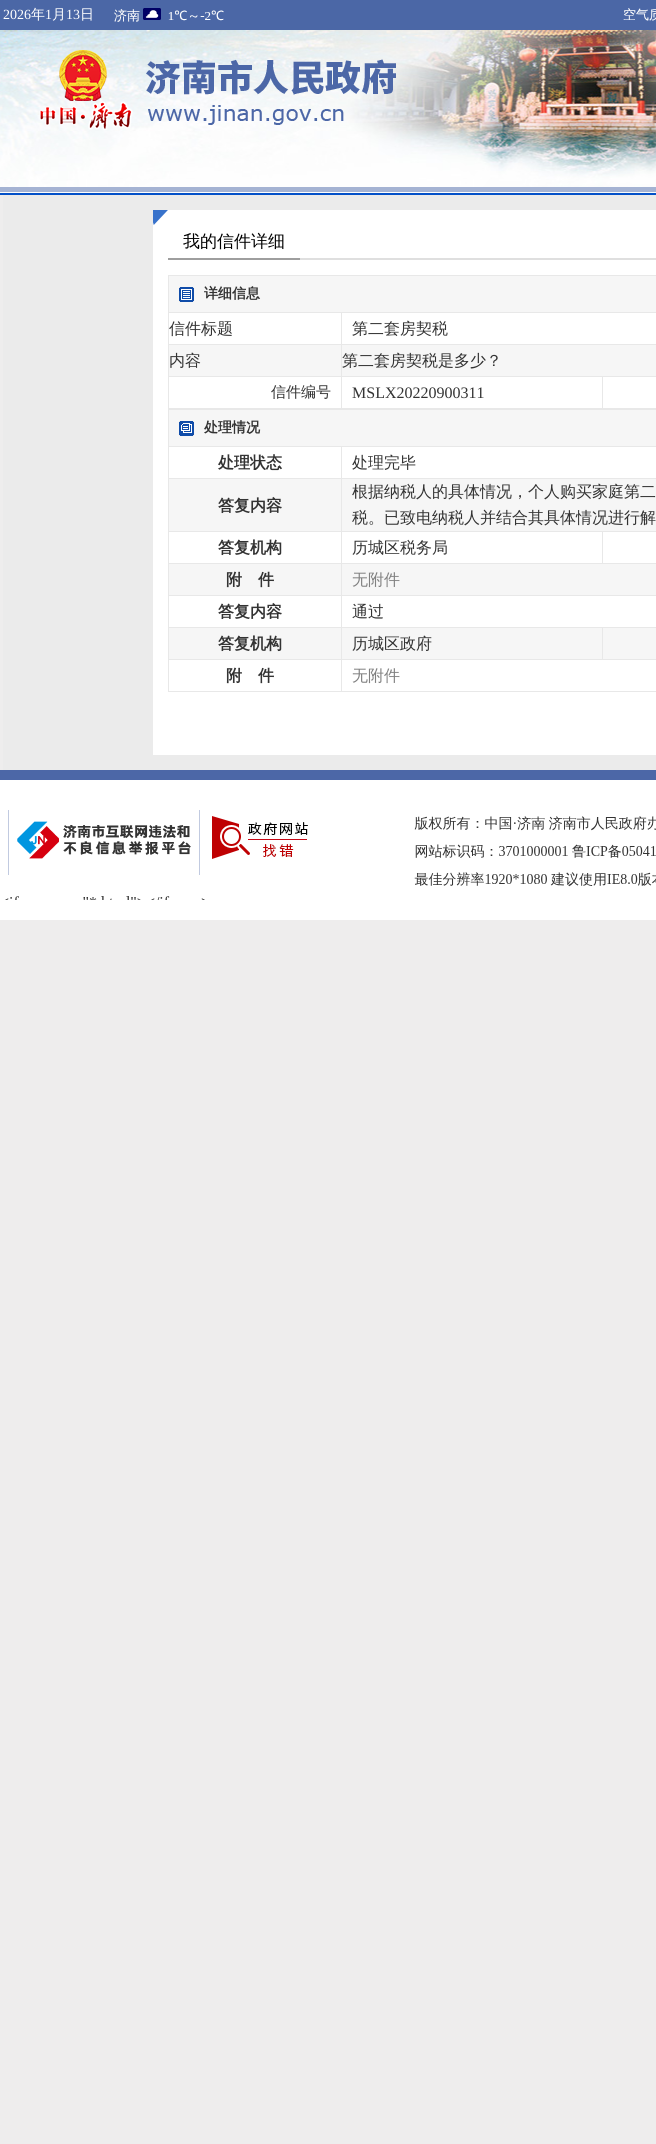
import math
import cairo

surface = cairo.ImageSurface(cairo.FORMAT_RGB24, 656, 2144)
ctx = cairo.Context(surface)
options = cairo.FontOptions()
options.set_hint_metrics(cairo.HINT_METRICS_OFF)
options.set_hint_style(cairo.HINT_STYLE_NONE)
ctx.set_font_options(options)
ctx.set_miter_limit(4)


def set_color(code):
    ctx.set_source_rgb(*(v / 255 for v in bytes.fromhex(code[-6:])))


def draw_text(x, y, s, family, size, color, bold=False, italic=False):
    ctx.select_font_face(family, cairo.FONT_SLANT_ITALIC if italic else cairo.FONT_SLANT_NORMAL, cairo.FONT_WEIGHT_BOLD if bold else cairo.FONT_WEIGHT_NORMAL)
    ctx.set_font_size(size)
    set_color(color)
    ctx.move_to(x, y)
    ctx.show_text(s)


def fill_rect(x, y, w, h, color):
    set_color(color)
    ctx.rectangle(x, y, w, h)
    ctx.fill()


def draw_image(path, x, y, w, h):
    ctx.save()
    ctx.set_source_surface(cairo.ImageSurface.create_from_png(path), x, y)
    ctx.rectangle(x, y, w, h)
    ctx.fill()
    ctx.restore()


set_color("#eeeded")
ctx.paint()
fill_rect(0, 193, 656, 2, "#0350c8")
draw_image("assets/img1.png", 0, 30, 656, 163)
fill_rect(0, 0, 656, 30, "#4b67a6")
draw_text(3, 19, "2026", "Liberation Serif", 14, "#ffffff")
draw_text(31, 19, "年", "WenQuanYi Zen Hei Medium", 14, "#ffffff")
draw_text(45, 19, "1", "Liberation Serif", 14, "#ffffff")
draw_text(52, 19, "月", "WenQuanYi Zen Hei Medium", 14, "#ffffff")
draw_text(66, 19, "13", "Liberation Serif", 14, "#ffffff")
draw_text(80, 19, "日", "WenQuanYi Zen Hei Medium", 14, "#ffffff")
draw_image("assets/img2.png", 114, 8, 110, 14)
draw_image("assets/img3.png", 623, 8, 33, 13)
draw_image("assets/img4.png", 39, 50, 357, 80)
fill_rect(0, 187, 656, 5, "#a5b3d3")
fill_rect(3, 195, 653, 575, "#ebebeb")
fill_rect(153, 210, 503, 545, "#ffffff")
draw_image("assets/img5.png", 153, 210, 15, 15)
fill_rect(300, 258, 356, 2, "#dfdfdf")
fill_rect(168, 258, 132, 2, "#9e9e9e")
draw_text(183, 247, "我的信件详细", "WenQuanYi Zen Hei Medium", 17, "#000000")
fill_rect(168, 275, 488, 1, "#e8e8e8")
fill_rect(168, 408, 488, 2, "#e8e8e8")
fill_rect(168, 275, 1, 134, "#e8e8e8")
fill_rect(169, 276, 487, 36, "#f6f6f6")
draw_image("assets/img6.png", 179, 287, 15, 15)
draw_text(204, 298, "详细信息", "WenQuanYi Zen Hei", 14, "#333333", bold=True)
fill_rect(168, 312, 488, 1, "#e8e8e8")
draw_text(169, 334, "信件标题", "WenQuanYi Zen Hei Medium", 16, "#333333")
draw_text(352, 334, "第二套房契税", "WenQuanYi Zen Hei Medium", 16, "#333333")
fill_rect(169, 345, 487, 31, "#f6f6f6")
fill_rect(168, 344, 488, 1, "#e8e8e8")
draw_text(169, 366, "内容", "WenQuanYi Zen Hei Medium", 16, "#333333")
draw_text(342, 366, "第二套房契税是多少？", "WenQuanYi Zen Hei Medium", 16, "#333333")
fill_rect(168, 376, 488, 1, "#e8e8e8")
draw_text(271, 397, "信件编号", "WenQuanYi Zen Hei Medium", 15, "#333333")
fill_rect(341, 312, 1, 97, "#e8e8e8")
draw_text(352, 398, "MSLX20220900311", "Liberation Serif", 16, "#333333")
fill_rect(602, 376, 1, 33, "#e8e8e8")
fill_rect(168, 691, 488, 1, "#e8e8e8")
fill_rect(168, 409, 1, 283, "#e8e8e8")
fill_rect(169, 410, 487, 36, "#f6f6f6")
draw_image("assets/img7.png", 179, 421, 15, 15)
draw_text(204, 432, "处理情况", "WenQuanYi Zen Hei", 14, "#333333", bold=True)
fill_rect(168, 446, 488, 1, "#e8e8e8")
draw_text(218, 468, "处理状态", "WenQuanYi Zen Hei", 16, "#333333", bold=True)
draw_text(352, 468, "处理完毕", "WenQuanYi Zen Hei Medium", 16, "#333333")
fill_rect(169, 479, 487, 52, "#f6f6f6")
fill_rect(168, 478, 488, 1, "#e8e8e8")
draw_text(218, 511, "答复内容", "WenQuanYi Zen Hei", 16, "#333333", bold=True)
draw_text(352, 497, "根据纳税人的具体情况，个人购买家庭第二", "WenQuanYi Zen Hei Medium", 16, "#333333")
draw_text(352, 523, "税。已致电纳税人并结合其具体情况进行解", "WenQuanYi Zen Hei Medium", 16, "#333333")
fill_rect(168, 531, 488, 1, "#e8e8e8")
draw_text(218, 553, "答复机构", "WenQuanYi Zen Hei", 16, "#333333", bold=True)
draw_text(352, 553, "历城区税务局", "WenQuanYi Zen Hei Medium", 16, "#333333")
fill_rect(168, 563, 488, 1, "#e8e8e8")
fill_rect(602, 531, 1, 33, "#e8e8e8")
fill_rect(169, 564, 487, 31, "#f6f6f6")
draw_text(226, 585, "附", "WenQuanYi Zen Hei", 16, "#333333", bold=True)
draw_text(258, 585, "件", "WenQuanYi Zen Hei", 16, "#333333", bold=True)
draw_text(352, 585, "无附件", "WenQuanYi Zen Hei Medium", 16, "#808080")
fill_rect(168, 595, 488, 1, "#e8e8e8")
draw_text(218, 617, "答复内容", "WenQuanYi Zen Hei", 16, "#333333", bold=True)
draw_text(352, 617, "通过", "WenQuanYi Zen Hei Medium", 16, "#333333")
fill_rect(169, 628, 487, 31, "#f6f6f6")
fill_rect(168, 627, 488, 1, "#e8e8e8")
draw_text(218, 649, "答复机构", "WenQuanYi Zen Hei", 16, "#333333", bold=True)
draw_text(352, 649, "历城区政府", "WenQuanYi Zen Hei Medium", 16, "#333333")
fill_rect(168, 659, 488, 1, "#e8e8e8")
fill_rect(602, 627, 1, 33, "#e8e8e8")
draw_text(226, 681, "附", "WenQuanYi Zen Hei", 16, "#333333", bold=True)
draw_text(258, 681, "件", "WenQuanYi Zen Hei", 16, "#333333", bold=True)
fill_rect(341, 446, 1, 246, "#e8e8e8")
draw_text(352, 681, "无附件", "WenQuanYi Zen Hei Medium", 16, "#808080")
fill_rect(0, 780, 656, 140, "#ffffff")
fill_rect(0, 770, 656, 10, "#4c67a7")
draw_image("assets/img8.png", 5, 810, 651, 90)
surface.write_to_png("output.png")
